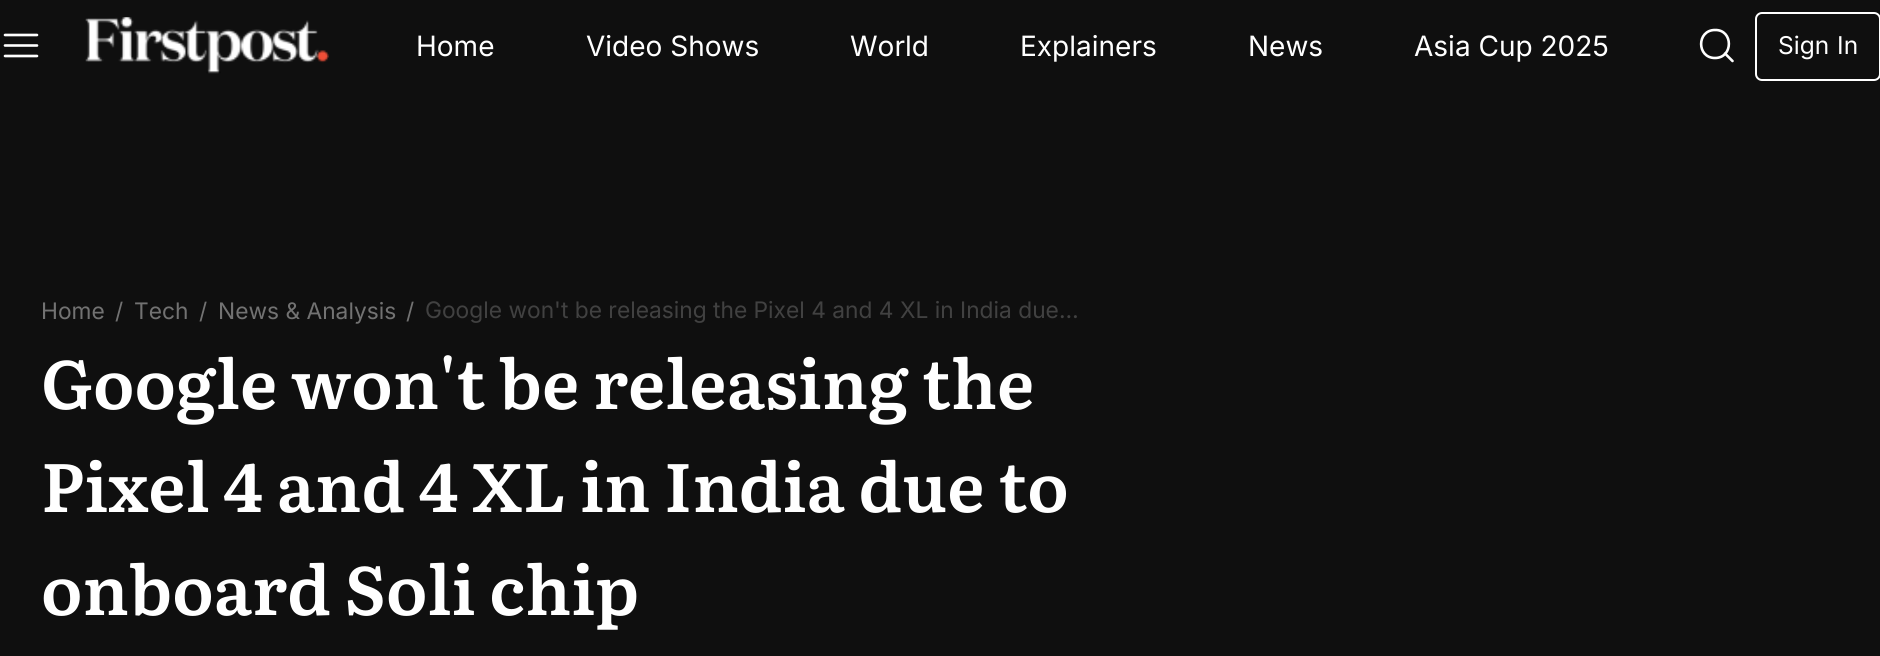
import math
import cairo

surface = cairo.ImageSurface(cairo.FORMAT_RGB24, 1880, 656)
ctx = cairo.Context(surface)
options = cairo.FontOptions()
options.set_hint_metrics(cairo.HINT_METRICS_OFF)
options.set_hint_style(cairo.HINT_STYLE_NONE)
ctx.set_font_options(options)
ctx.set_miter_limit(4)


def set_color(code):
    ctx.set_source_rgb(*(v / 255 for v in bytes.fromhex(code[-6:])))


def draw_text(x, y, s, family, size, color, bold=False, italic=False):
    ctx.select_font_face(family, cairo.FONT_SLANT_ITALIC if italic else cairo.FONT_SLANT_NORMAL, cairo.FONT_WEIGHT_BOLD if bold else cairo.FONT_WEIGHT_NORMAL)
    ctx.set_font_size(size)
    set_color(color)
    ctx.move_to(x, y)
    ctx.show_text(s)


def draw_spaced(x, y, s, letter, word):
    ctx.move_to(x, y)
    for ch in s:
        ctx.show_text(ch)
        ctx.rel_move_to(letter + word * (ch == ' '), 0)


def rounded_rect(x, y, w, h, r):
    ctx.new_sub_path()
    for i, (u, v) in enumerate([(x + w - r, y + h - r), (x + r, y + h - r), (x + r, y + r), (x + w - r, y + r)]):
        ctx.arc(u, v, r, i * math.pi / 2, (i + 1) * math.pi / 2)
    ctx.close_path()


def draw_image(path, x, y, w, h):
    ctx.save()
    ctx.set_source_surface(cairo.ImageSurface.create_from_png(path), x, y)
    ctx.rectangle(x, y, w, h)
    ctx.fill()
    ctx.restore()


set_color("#0f0f0f")
ctx.paint()
ctx.new_path()
ctx.move_to(5, 45.5)
ctx.line_to(37, 45.5)
ctx.move_to(5, 35)
ctx.line_to(37, 35)
ctx.move_to(5, 56)
ctx.line_to(37, 56)
set_color("#ffffff")
ctx.set_line_width(2.6)
ctx.set_line_cap(cairo.LINE_CAP_ROUND)
ctx.set_line_join(cairo.LINE_JOIN_ROUND)
ctx.stroke()
draw_image("assets/img1.png", 85, 17, 244, 57)
draw_text(416, 56, "Home", "Inter", 28, "#ffffff")
draw_text(586, 56, "Video Shows", "Inter", 28, "#ffffff")
draw_text(850, 56, "World", "Inter", 28, "#ffffff")
draw_text(1020, 56, "Explainers", "Inter", 28, "#ffffff")
draw_text(1248, 56, "News", "Inter", 28, "#ffffff")
draw_text(1414, 56, "Asia Cup 2025", "Inter", 28, "#ffffff")
ctx.new_path()
ctx.move_to(1715, 58)
ctx.curve_to(1733.5, 58, 1733.5, 29.5, 1715, 30)
ctx.curve_to(1696.5, 30, 1696.5, 58, 1715, 58)
ctx.close_path()
ctx.move_to(1732.5, 61)
ctx.line_to(1725, 53.5)
ctx.stroke()
rounded_rect(1756, 13, 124, 67, 6)
ctx.set_line_width(2)
ctx.set_line_cap(cairo.LINE_CAP_BUTT)
ctx.set_line_join(cairo.LINE_JOIN_MITER)
ctx.stroke()
ctx.set_font_size(24.5)
draw_spaced(1778, 54, "Sign In", 0, 1)
draw_text(41, 319, "Home", "Inter", 22.75, "#727272")
draw_text(115, 319, "/", "Inter", 22.75, "#727272")
draw_text(134, 319, "Tech", "Inter", 22.75, "#727272")
draw_text(199, 319, "/", "Inter", 22.75, "#727272")
draw_text(218, 319, "News & Analysis", "Inter", 22.75, "#727272")
draw_text(406, 319, "/", "Inter", 22.75, "#727272")
draw_text(425, 318, "Google won't be releasing the Pixel 4 and 4 XL in India due…", "Inter", 22.75, "#414141")
draw_text(41, 409, "Google won't be releasing the", "Literata SemiBold", 68.25, "#ffffff")
draw_text(41, 512, "Pixel 4 and 4 XL in India due to", "Literata SemiBold", 68.25, "#ffffff")
draw_text(41, 615, "onboard Soli chip", "Literata SemiBold", 68.25, "#ffffff")
surface.write_to_png("output.png")
